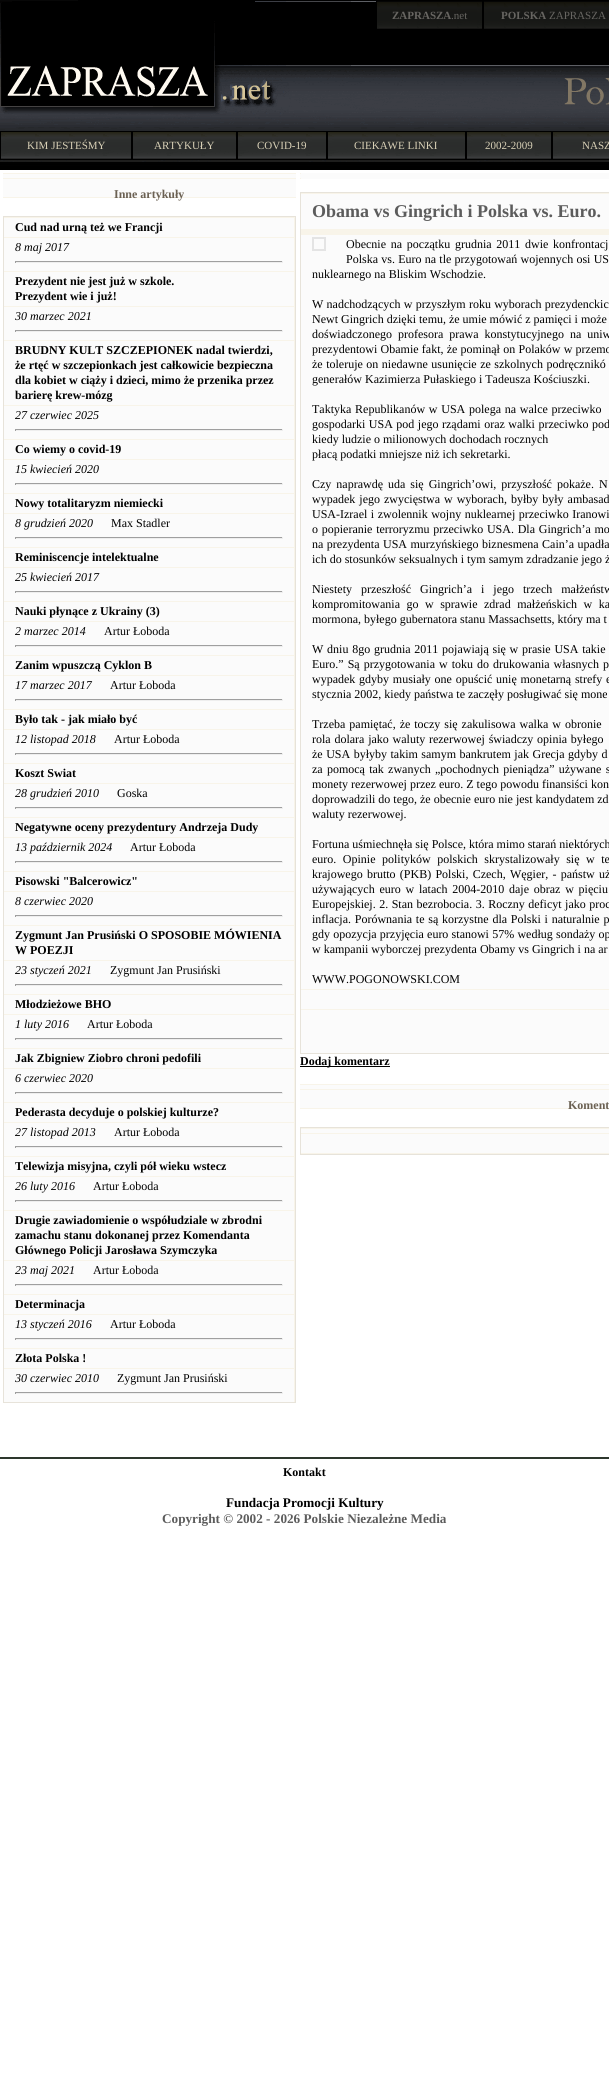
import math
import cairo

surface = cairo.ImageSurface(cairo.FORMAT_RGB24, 609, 2080)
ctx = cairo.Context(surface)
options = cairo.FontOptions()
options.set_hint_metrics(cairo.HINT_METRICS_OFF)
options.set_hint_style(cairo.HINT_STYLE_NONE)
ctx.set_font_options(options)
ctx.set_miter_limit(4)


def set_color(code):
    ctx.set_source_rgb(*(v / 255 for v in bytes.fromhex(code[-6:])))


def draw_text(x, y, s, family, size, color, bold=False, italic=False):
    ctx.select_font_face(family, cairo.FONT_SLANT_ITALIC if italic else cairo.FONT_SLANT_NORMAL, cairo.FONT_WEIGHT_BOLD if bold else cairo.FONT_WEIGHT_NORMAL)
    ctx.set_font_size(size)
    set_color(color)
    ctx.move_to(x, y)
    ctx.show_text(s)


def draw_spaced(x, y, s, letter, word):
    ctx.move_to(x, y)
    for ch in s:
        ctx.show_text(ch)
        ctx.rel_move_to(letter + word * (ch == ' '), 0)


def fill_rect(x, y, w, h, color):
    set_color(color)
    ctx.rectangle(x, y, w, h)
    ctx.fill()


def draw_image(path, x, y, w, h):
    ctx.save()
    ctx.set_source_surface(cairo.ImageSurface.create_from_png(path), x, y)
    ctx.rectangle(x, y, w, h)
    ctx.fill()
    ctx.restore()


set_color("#ffffff")
ctx.paint()
draw_image("assets/img1.png", 0, 162, 609, 8)
draw_image("assets/img2.png", 0, 0, 609, 162)
draw_image("assets/img3.png", 0, 1, 220, 112)
draw_image("assets/img4.png", 377, 1, 105, 28)
fill_rect(482, 1, 2, 1, "#000000")
fill_rect(376, 1, 1, 1, "#000000")
draw_text(392, 19, "ZAPRASZA", "Liberation Serif", 11, "#676561", bold=True)
draw_text(451, 19, ".net", "Liberation Serif", 11, "#676561")
draw_image("assets/img5.png", 484, 1, 125, 28)
draw_text(501, 19, "POLSKA", "Liberation Serif", 11, "#676561", bold=True)
draw_text(549, 19, "ZAPRASZA", "Liberation Serif", 11, "#676561")
draw_image("assets/img6.png", 220, 77, 69, 37)
draw_image("assets/img7.png", 564, 77, 45, 28)
draw_image("assets/img8.png", 1, 131, 130, 28)
fill_rect(131, 131, 1, 29, "#000000")
fill_rect(0, 159, 132, 1, "#000000")
fill_rect(0, 131, 1, 29, "#000000")
draw_text(27, 149, "KIM JESTEŚMY", "Liberation Serif", 11, "#d8d0b6")
draw_image("assets/img9.png", 133, 131, 103, 28)
fill_rect(236, 131, 1, 29, "#000000")
fill_rect(132, 159, 105, 1, "#000000")
fill_rect(132, 131, 1, 29, "#000000")
draw_text(154, 149, "ARTYKUŁY", "Liberation Serif", 11, "#d8d0b6")
draw_image("assets/img10.png", 238, 131, 88, 28)
fill_rect(326, 131, 1, 29, "#000000")
fill_rect(237, 159, 90, 1, "#000000")
fill_rect(237, 131, 1, 29, "#000000")
draw_text(257, 149, "COVID-19", "Liberation Serif", 11, "#d8d0b6")
draw_image("assets/img11.png", 328, 131, 137, 28)
fill_rect(465, 131, 1, 29, "#000000")
fill_rect(327, 159, 139, 1, "#000000")
fill_rect(327, 131, 1, 29, "#000000")
draw_text(354, 149, "CIEKAWE LINKI", "Liberation Serif", 11, "#d8d0b6")
draw_image("assets/img12.png", 467, 131, 84, 28)
fill_rect(551, 131, 1, 29, "#000000")
fill_rect(466, 159, 143, 1, "#000000")
fill_rect(466, 131, 1, 29, "#000000")
draw_text(485, 149, "2002-2009", "Liberation Serif", 11, "#d8d0b6")
draw_image("assets/img13.png", 553, 131, 56, 28)
fill_rect(552, 131, 1, 29, "#000000")
draw_text(582, 149, "NASZ", "Liberation Serif", 11, "#d8d0b6")
draw_image("assets/img14.png", 3, 173, 1, 25)
draw_image("assets/img15.png", 4, 173, 291, 25)
draw_text(114, 198, "Inne artykuły", "Liberation Serif", 12, "#6b6153", bold=True)
draw_image("assets/img14.png", 295, 173, 1, 25)
ctx.rectangle(3.5, 216.5, 292, 1186)
set_color("#e7e3da")
ctx.set_line_width(1)
ctx.stroke()
fill_rect(4, 218, 290, 19, "#fbfbfb")
fill_rect(4, 217, 291, 1, "#f8f4e9")
fill_rect(294, 217, 1, 20, "#f8f4e9")
draw_text(15, 231, "Cud nad urną też we Francji", "Liberation Serif", 12, "#000000", bold=True)
fill_rect(4, 238, 290, 33, "#fbfbfb")
fill_rect(4, 237, 291, 1, "#f8f4e9")
fill_rect(294, 237, 1, 34, "#f8f4e9")
draw_text(15, 251, "8 maj 2017", "Liberation Serif", 12, "#000000", italic=True)
fill_rect(15, 261, 268, 1, "#9f9f9f")
fill_rect(282, 261, 1, 2, "#eeeeee")
fill_rect(15, 262, 268, 1, "#eeeeee")
fill_rect(15, 261, 1, 2, "#9f9f9f")
fill_rect(4, 272, 290, 34, "#fbfbfb")
fill_rect(4, 271, 291, 1, "#f8f4e9")
fill_rect(294, 271, 1, 35, "#f8f4e9")
draw_text(15, 285, "Prezydent nie jest już w szkole.", "Liberation Serif", 12, "#000000", bold=True)
draw_text(15, 300, "Prezydent wie i już!", "Liberation Serif", 12, "#000000", bold=True)
fill_rect(4, 307, 290, 33, "#fbfbfb")
fill_rect(4, 306, 291, 1, "#f8f4e9")
fill_rect(294, 306, 1, 34, "#f8f4e9")
draw_text(15, 320, "30 marzec 2021", "Liberation Serif", 12, "#000000", italic=True)
fill_rect(15, 330, 268, 1, "#9f9f9f")
fill_rect(282, 330, 1, 2, "#eeeeee")
fill_rect(15, 331, 268, 1, "#eeeeee")
fill_rect(15, 330, 1, 2, "#9f9f9f")
fill_rect(4, 341, 290, 64, "#fbfbfb")
fill_rect(4, 340, 291, 1, "#f8f4e9")
fill_rect(294, 340, 1, 65, "#f8f4e9")
draw_text(15, 354, "BRUDNY KULT SZCZEPIONEK nadal twierdzi,", "Liberation Serif", 12, "#000000", bold=True)
draw_text(15, 369, "że rtęć w szczepionkach jest całkowicie bezpieczna", "Liberation Serif", 12, "#000000", bold=True)
draw_text(15, 384, "dla kobiet w ciąży i dzieci, mimo że przenika przez", "Liberation Serif", 12, "#000000", bold=True)
draw_text(15, 399, "barierę krew-mózg", "Liberation Serif", 12, "#000000", bold=True)
fill_rect(4, 406, 290, 33, "#fbfbfb")
fill_rect(4, 405, 291, 1, "#f8f4e9")
fill_rect(294, 405, 1, 34, "#f8f4e9")
draw_text(15, 419, "27 czerwiec 2025", "Liberation Serif", 12, "#000000", italic=True)
fill_rect(15, 429, 268, 1, "#9f9f9f")
fill_rect(282, 429, 1, 2, "#eeeeee")
fill_rect(15, 430, 268, 1, "#eeeeee")
fill_rect(15, 429, 1, 2, "#9f9f9f")
fill_rect(4, 440, 290, 19, "#fbfbfb")
fill_rect(4, 439, 291, 1, "#f8f4e9")
fill_rect(294, 439, 1, 20, "#f8f4e9")
draw_text(15, 453, "Co wiemy o covid-19", "Liberation Serif", 12, "#000000", bold=True)
fill_rect(4, 460, 290, 33, "#fbfbfb")
fill_rect(4, 459, 291, 1, "#f8f4e9")
fill_rect(294, 459, 1, 34, "#f8f4e9")
draw_text(15, 473, "15 kwiecień 2020", "Liberation Serif", 12, "#000000", italic=True)
fill_rect(15, 483, 268, 1, "#9f9f9f")
fill_rect(282, 483, 1, 2, "#eeeeee")
fill_rect(15, 484, 268, 1, "#eeeeee")
fill_rect(15, 483, 1, 2, "#9f9f9f")
fill_rect(4, 494, 290, 19, "#fbfbfb")
fill_rect(4, 493, 291, 1, "#f8f4e9")
fill_rect(294, 493, 1, 20, "#f8f4e9")
draw_text(15, 507, "Nowy totalitaryzm niemiecki", "Liberation Serif", 12, "#000000", bold=True)
fill_rect(4, 514, 290, 33, "#fbfbfb")
fill_rect(4, 513, 291, 1, "#f8f4e9")
fill_rect(294, 513, 1, 34, "#f8f4e9")
draw_text(15, 527, "8 grudzień 2020", "Liberation Serif", 12, "#000000", italic=True)
draw_text(111, 527, "Max Stadler", "Liberation Serif", 12, "#000000")
fill_rect(15, 537, 268, 1, "#9f9f9f")
fill_rect(282, 537, 1, 2, "#eeeeee")
fill_rect(15, 538, 268, 1, "#eeeeee")
fill_rect(15, 537, 1, 2, "#9f9f9f")
fill_rect(4, 548, 290, 19, "#fbfbfb")
fill_rect(4, 547, 291, 1, "#f8f4e9")
fill_rect(294, 547, 1, 20, "#f8f4e9")
draw_text(15, 561, "Reminiscencje intelektualne", "Liberation Serif", 12, "#000000", bold=True)
fill_rect(4, 568, 290, 33, "#fbfbfb")
fill_rect(4, 567, 291, 1, "#f8f4e9")
fill_rect(294, 567, 1, 34, "#f8f4e9")
draw_text(15, 581, "25 kwiecień 2017", "Liberation Serif", 12, "#000000", italic=True)
fill_rect(15, 591, 268, 1, "#9f9f9f")
fill_rect(282, 591, 1, 2, "#eeeeee")
fill_rect(15, 592, 268, 1, "#eeeeee")
fill_rect(15, 591, 1, 2, "#9f9f9f")
fill_rect(4, 602, 290, 19, "#fbfbfb")
fill_rect(4, 601, 291, 1, "#f8f4e9")
fill_rect(294, 601, 1, 20, "#f8f4e9")
draw_text(15, 615, "Nauki płynące z Ukrainy (3)", "Liberation Serif", 12, "#000000", bold=True)
fill_rect(4, 622, 290, 33, "#fbfbfb")
fill_rect(4, 621, 291, 1, "#f8f4e9")
fill_rect(294, 621, 1, 34, "#f8f4e9")
draw_text(15, 635, "2 marzec 2014", "Liberation Serif", 12, "#000000", italic=True)
draw_text(104, 635, "Artur Łoboda", "Liberation Serif", 12, "#000000")
fill_rect(15, 645, 268, 1, "#9f9f9f")
fill_rect(282, 645, 1, 2, "#eeeeee")
fill_rect(15, 646, 268, 1, "#eeeeee")
fill_rect(15, 645, 1, 2, "#9f9f9f")
fill_rect(4, 656, 290, 19, "#fbfbfb")
fill_rect(4, 655, 291, 1, "#f8f4e9")
fill_rect(294, 655, 1, 20, "#f8f4e9")
draw_text(15, 669, "Zanim wpuszczą Cyklon B", "Liberation Serif", 12, "#000000", bold=True)
fill_rect(4, 676, 290, 33, "#fbfbfb")
fill_rect(4, 675, 291, 1, "#f8f4e9")
fill_rect(294, 675, 1, 34, "#f8f4e9")
draw_text(15, 689, "17 marzec 2017", "Liberation Serif", 12, "#000000", italic=True)
draw_text(110, 689, "Artur Łoboda", "Liberation Serif", 12, "#000000")
fill_rect(15, 699, 268, 1, "#9f9f9f")
fill_rect(282, 699, 1, 2, "#eeeeee")
fill_rect(15, 700, 268, 1, "#eeeeee")
fill_rect(15, 699, 1, 2, "#9f9f9f")
fill_rect(4, 710, 290, 19, "#fbfbfb")
fill_rect(4, 709, 291, 1, "#f8f4e9")
fill_rect(294, 709, 1, 20, "#f8f4e9")
draw_text(15, 723, "Było tak - jak miało być", "Liberation Serif", 12, "#000000", bold=True)
fill_rect(4, 730, 290, 33, "#fbfbfb")
fill_rect(4, 729, 291, 1, "#f8f4e9")
fill_rect(294, 729, 1, 34, "#f8f4e9")
draw_text(15, 743, "12 listopad 2018", "Liberation Serif", 12, "#000000", italic=True)
draw_text(114, 743, "Artur Łoboda", "Liberation Serif", 12, "#000000")
fill_rect(15, 753, 268, 1, "#9f9f9f")
fill_rect(282, 753, 1, 2, "#eeeeee")
fill_rect(15, 754, 268, 1, "#eeeeee")
fill_rect(15, 753, 1, 2, "#9f9f9f")
fill_rect(4, 764, 290, 19, "#fbfbfb")
fill_rect(4, 763, 291, 1, "#f8f4e9")
fill_rect(294, 763, 1, 20, "#f8f4e9")
draw_text(15, 777, "Koszt Swiat", "Liberation Serif", 12, "#000000", bold=True)
fill_rect(4, 784, 290, 33, "#fbfbfb")
fill_rect(4, 783, 291, 1, "#f8f4e9")
fill_rect(294, 783, 1, 34, "#f8f4e9")
draw_text(15, 797, "28 grudzień 2010", "Liberation Serif", 12, "#000000", italic=True)
draw_text(117, 797, "Goska", "Liberation Serif", 12, "#000000")
fill_rect(15, 807, 268, 1, "#9f9f9f")
fill_rect(282, 807, 1, 2, "#eeeeee")
fill_rect(15, 808, 268, 1, "#eeeeee")
fill_rect(15, 807, 1, 2, "#9f9f9f")
fill_rect(4, 818, 290, 19, "#fbfbfb")
fill_rect(4, 817, 291, 1, "#f8f4e9")
fill_rect(294, 817, 1, 20, "#f8f4e9")
draw_text(15, 831, "Negatywne oceny prezydentury Andrzeja Dudy", "Liberation Serif", 12, "#000000", bold=True)
fill_rect(4, 838, 290, 33, "#fbfbfb")
fill_rect(4, 837, 291, 1, "#f8f4e9")
fill_rect(294, 837, 1, 34, "#f8f4e9")
draw_text(15, 851, "13 październik 2024", "Liberation Serif", 12, "#000000", italic=True)
draw_text(130, 851, "Artur Łoboda", "Liberation Serif", 12, "#000000")
fill_rect(15, 861, 268, 1, "#9f9f9f")
fill_rect(282, 861, 1, 2, "#eeeeee")
fill_rect(15, 862, 268, 1, "#eeeeee")
fill_rect(15, 861, 1, 2, "#9f9f9f")
fill_rect(4, 872, 290, 19, "#fbfbfb")
fill_rect(4, 871, 291, 1, "#f8f4e9")
fill_rect(294, 871, 1, 20, "#f8f4e9")
draw_text(15, 885, "Pisowski \"Balcerowicz\"", "Liberation Serif", 12, "#000000", bold=True)
fill_rect(4, 892, 290, 33, "#fbfbfb")
fill_rect(4, 891, 291, 1, "#f8f4e9")
fill_rect(294, 891, 1, 34, "#f8f4e9")
draw_text(15, 905, "8 czerwiec 2020", "Liberation Serif", 12, "#000000", italic=True)
fill_rect(15, 915, 268, 1, "#9f9f9f")
fill_rect(282, 915, 1, 2, "#eeeeee")
fill_rect(15, 916, 268, 1, "#eeeeee")
fill_rect(15, 915, 1, 2, "#9f9f9f")
fill_rect(4, 926, 290, 34, "#fbfbfb")
fill_rect(4, 925, 291, 1, "#f8f4e9")
fill_rect(294, 925, 1, 35, "#f8f4e9")
draw_text(15, 939, "Zygmunt Jan Prusiński O SPOSOBIE MÓWIENIA", "Liberation Serif", 12, "#000000", bold=True)
draw_text(15, 954, "W POEZJI", "Liberation Serif", 12, "#000000", bold=True)
fill_rect(4, 961, 290, 33, "#fbfbfb")
fill_rect(4, 960, 291, 1, "#f8f4e9")
fill_rect(294, 960, 1, 34, "#f8f4e9")
draw_text(15, 974, "23 styczeń 2021", "Liberation Serif", 12, "#000000", italic=True)
draw_text(110, 974, "Zygmunt Jan Prusiński", "Liberation Serif", 12, "#000000")
fill_rect(15, 984, 268, 1, "#9f9f9f")
fill_rect(282, 984, 1, 2, "#eeeeee")
fill_rect(15, 985, 268, 1, "#eeeeee")
fill_rect(15, 984, 1, 2, "#9f9f9f")
fill_rect(4, 995, 290, 19, "#fbfbfb")
fill_rect(4, 994, 291, 1, "#f8f4e9")
fill_rect(294, 994, 1, 20, "#f8f4e9")
draw_text(15, 1008, "Młodzieżowe BHO", "Liberation Serif", 12, "#000000", bold=True)
fill_rect(4, 1015, 290, 33, "#fbfbfb")
fill_rect(4, 1014, 291, 1, "#f8f4e9")
fill_rect(294, 1014, 1, 34, "#f8f4e9")
draw_text(15, 1028, "1 luty 2016", "Liberation Serif", 12, "#000000", italic=True)
draw_text(87, 1028, "Artur Łoboda", "Liberation Serif", 12, "#000000")
fill_rect(15, 1038, 268, 1, "#9f9f9f")
fill_rect(282, 1038, 1, 2, "#eeeeee")
fill_rect(15, 1039, 268, 1, "#eeeeee")
fill_rect(15, 1038, 1, 2, "#9f9f9f")
fill_rect(4, 1049, 290, 19, "#fbfbfb")
fill_rect(4, 1048, 291, 1, "#f8f4e9")
fill_rect(294, 1048, 1, 20, "#f8f4e9")
draw_text(15, 1062, "Jak Zbigniew Ziobro chroni pedofili", "Liberation Serif", 12, "#000000", bold=True)
fill_rect(4, 1069, 290, 33, "#fbfbfb")
fill_rect(4, 1068, 291, 1, "#f8f4e9")
fill_rect(294, 1068, 1, 34, "#f8f4e9")
draw_text(15, 1082, "6 czerwiec 2020", "Liberation Serif", 12, "#000000", italic=True)
fill_rect(15, 1092, 268, 1, "#9f9f9f")
fill_rect(282, 1092, 1, 2, "#eeeeee")
fill_rect(15, 1093, 268, 1, "#eeeeee")
fill_rect(15, 1092, 1, 2, "#9f9f9f")
fill_rect(4, 1103, 290, 19, "#fbfbfb")
fill_rect(4, 1102, 291, 1, "#f8f4e9")
fill_rect(294, 1102, 1, 20, "#f8f4e9")
draw_text(15, 1116, "Pederasta decyduje o polskiej kulturze?", "Liberation Serif", 12, "#000000", bold=True)
fill_rect(4, 1123, 290, 33, "#fbfbfb")
fill_rect(4, 1122, 291, 1, "#f8f4e9")
fill_rect(294, 1122, 1, 34, "#f8f4e9")
draw_text(15, 1136, "27 listopad 2013", "Liberation Serif", 12, "#000000", italic=True)
draw_text(114, 1136, "Artur Łoboda", "Liberation Serif", 12, "#000000")
fill_rect(15, 1146, 268, 1, "#9f9f9f")
fill_rect(282, 1146, 1, 2, "#eeeeee")
fill_rect(15, 1147, 268, 1, "#eeeeee")
fill_rect(15, 1146, 1, 2, "#9f9f9f")
fill_rect(4, 1157, 290, 19, "#fbfbfb")
fill_rect(4, 1156, 291, 1, "#f8f4e9")
fill_rect(294, 1156, 1, 20, "#f8f4e9")
draw_text(15, 1170, "Telewizja misyjna, czyli pół wieku wstecz", "Liberation Serif", 12, "#000000", bold=True)
fill_rect(4, 1177, 290, 33, "#fbfbfb")
fill_rect(4, 1176, 291, 1, "#f8f4e9")
fill_rect(294, 1176, 1, 34, "#f8f4e9")
draw_text(15, 1190, "26 luty 2016", "Liberation Serif", 12, "#000000", italic=True)
draw_text(93, 1190, "Artur Łoboda", "Liberation Serif", 12, "#000000")
fill_rect(15, 1200, 268, 1, "#9f9f9f")
fill_rect(282, 1200, 1, 2, "#eeeeee")
fill_rect(15, 1201, 268, 1, "#eeeeee")
fill_rect(15, 1200, 1, 2, "#9f9f9f")
fill_rect(4, 1211, 290, 49, "#fbfbfb")
fill_rect(4, 1210, 291, 1, "#f8f4e9")
fill_rect(294, 1210, 1, 50, "#f8f4e9")
draw_text(15, 1224, "Drugie zawiadomienie o współudziale w zbrodni", "Liberation Serif", 12, "#000000", bold=True)
draw_text(15, 1239, "zamachu stanu dokonanej przez Komendanta", "Liberation Serif", 12, "#000000", bold=True)
draw_text(15, 1254, "Głównego Policji Jarosława Szymczyka", "Liberation Serif", 12, "#000000", bold=True)
fill_rect(4, 1261, 290, 33, "#fbfbfb")
fill_rect(4, 1260, 291, 1, "#f8f4e9")
fill_rect(294, 1260, 1, 34, "#f8f4e9")
draw_text(15, 1274, "23 maj 2021", "Liberation Serif", 12, "#000000", italic=True)
draw_text(93, 1274, "Artur Łoboda", "Liberation Serif", 12, "#000000")
fill_rect(15, 1284, 268, 1, "#9f9f9f")
fill_rect(282, 1284, 1, 2, "#eeeeee")
fill_rect(15, 1285, 268, 1, "#eeeeee")
fill_rect(15, 1284, 1, 2, "#9f9f9f")
fill_rect(4, 1295, 290, 19, "#fbfbfb")
fill_rect(4, 1294, 291, 1, "#f8f4e9")
fill_rect(294, 1294, 1, 20, "#f8f4e9")
draw_text(15, 1308, "Determinacja", "Liberation Serif", 12, "#000000", bold=True)
fill_rect(4, 1315, 290, 33, "#fbfbfb")
fill_rect(4, 1314, 291, 1, "#f8f4e9")
fill_rect(294, 1314, 1, 34, "#f8f4e9")
draw_text(15, 1328, "13 styczeń 2016", "Liberation Serif", 12, "#000000", italic=True)
draw_text(110, 1328, "Artur Łoboda", "Liberation Serif", 12, "#000000")
fill_rect(15, 1338, 268, 1, "#9f9f9f")
fill_rect(282, 1338, 1, 2, "#eeeeee")
fill_rect(15, 1339, 268, 1, "#eeeeee")
fill_rect(15, 1338, 1, 2, "#9f9f9f")
fill_rect(4, 1349, 290, 19, "#fbfbfb")
fill_rect(4, 1348, 291, 1, "#f8f4e9")
fill_rect(294, 1348, 1, 20, "#f8f4e9")
draw_text(15, 1362, "Złota Polska !", "Liberation Serif", 12, "#000000", bold=True)
fill_rect(4, 1369, 290, 33, "#fbfbfb")
fill_rect(4, 1368, 291, 1, "#f8f4e9")
fill_rect(294, 1368, 1, 34, "#f8f4e9")
draw_text(15, 1382, "30 czerwiec 2010", "Liberation Serif", 12, "#000000", italic=True)
draw_text(117, 1382, "Zygmunt Jan Prusiński", "Liberation Serif", 12, "#000000")
fill_rect(15, 1392, 268, 1, "#9f9f9f")
fill_rect(282, 1392, 1, 2, "#eeeeee")
fill_rect(15, 1393, 268, 1, "#eeeeee")
fill_rect(15, 1392, 1, 2, "#9f9f9f")
draw_image("assets/img16.png", 300, 173, 1, 6)
fill_rect(301, 173, 308, 6, "#fbfbfb")
ctx.rectangle(300.5, 192.5, 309, 861)
set_color("#e7e3da")
ctx.stroke()
fill_rect(301, 194, 308, 35, "#fbfbfb")
fill_rect(301, 193, 308, 1, "#f8f4e9")
draw_text(312, 217, "Obama vs Gingrich i Polska vs. Euro.", "Liberation Serif", 18, "#5c5c5c", bold=True)
fill_rect(301, 229, 308, 6, "#f8f4e9")
fill_rect(301, 235, 308, 754, "#fbfbfb")
ctx.rectangle(313, 238, 12, 12)
set_color("#e4e4e4")
ctx.set_line_width(2)
ctx.stroke()
ctx.select_font_face("Liberation Serif")
ctx.set_font_size(12)
set_color("#000000")
draw_spaced(346, 248, "Obecnie na początku grudnia 2011 dwie konfrontacj", 0, 1.75)
draw_spaced(346, 263, "Polska vs. Euro na tle przygotowań wojennych osi US", 0, 0.25)
draw_text(312, 278, "nuklearnego na Bliskim Wschodzie.", "Liberation Serif", 12, "#000000")
draw_spaced(312, 308, "W nadchodzących w przyszłym roku wyborach prezydenckic", 0, 0.25)
draw_text(312, 323, "Newt Gingrich dzięki temu, że umie mówić z pamięci i może", "Liberation Serif", 12, "#000000")
draw_spaced(312, 338, "doświadczonego profesora prawa konstytucyjnego na uniw", 0, 3)
draw_spaced(312, 353, "prezydentowi Obamie fakt, że pominął on Polaków w przemo", 0, 0.25)
draw_spaced(312, 368, "że toleruje on niedawne usunięcie ze szkolnych podręcznikó", 0, 0.5)
draw_text(312, 383, "generałów Kazimierza Pułaskiego i Tadeusza Kościuszki.", "Liberation Serif", 12, "#000000")
draw_spaced(312, 413, "Taktyka Republikanów w USA polega na walce przeciwko", 0, 0.75)
draw_spaced(312, 428, "gospodarki USA pod jego rządami oraz walki przeciwko pod", 0, 0.5)
draw_text(312, 443, "kiedy ludzie o milionowych dochodach rocznych", "Liberation Serif", 12, "#000000")
draw_text(312, 458, "płacą podatki mniejsze niż ich sekretarki.", "Liberation Serif", 12, "#000000")
draw_spaced(312, 488, "Czy naprawdę uda się Gingrich’owi, przyszłość pokaże. N", 0, 2)
draw_spaced(312, 503, "wypadek jego zwycięstwa w wyborach, byłby były ambasad", 0, 1)
draw_spaced(312, 518, "USA-Izrael i zwolennik wojny nuklearnej przeciwko Iranowi", 0, 0.5)
draw_spaced(312, 533, "o popieranie terroryzmu przeciwko USA. Dla Gingrich’a mo", 0, 0.75)
draw_spaced(312, 548, "na prezydenta USA murzyńskiego biznesmena Cain’a upadła", 0, 0.5)
draw_text(312, 563, "ich do stosunków seksualnych i tym samym zdradzanie jego ż", "Liberation Serif", 12, "#000000")
draw_spaced(312, 593, "Niestety przeszłość Gingrich’a i jego trzech małżeństw", 0, 6)
draw_spaced(312, 608, "kompromitowania go w sprawie zdrad małżeńskich w ka", 0, 3.5)
draw_text(312, 623, "mormona, byłego gubernatora stanu Massachsetts, który ma t", "Liberation Serif", 12, "#000000")
draw_spaced(312, 653, "W dniu 8go grudnia 2011 pojawiają się w prasie USA takie", 0, 0.75)
draw_spaced(312, 668, "Euro.” Są przygotowania w toku do drukowania własnych p", 0, 1)
draw_spaced(312, 683, "wypadek gdyby musiały one opuścić unię monetarną strefy e", 0, 0.75)
draw_text(312, 698, "stycznia 2002, kiedy państwa te zaczęły posługiwać się mone", "Liberation Serif", 12, "#000000")
draw_spaced(312, 728, "Trzeba pamiętać, że toczy się zakulisowa walka w obronie", 0, 1)
draw_spaced(312, 743, "rola dolara jako waluty rezerwowej świadczy opinia byłego", 0, 0.75)
draw_spaced(312, 758, "że USA byłyby takim samym bankrutem jak Grecja gdyby d", 0, 0.5)
draw_spaced(312, 773, "za pomocą tak zwanych „pochodnych pieniądza” używane s", 0, 1.25)
draw_text(312, 788, "monety rezerwowej przez euro. Z tego powodu finansiści kon", "Liberation Serif", 12, "#000000")
draw_text(312, 803, "doprowadzili do tego, że obecnie euro nie jest kandydatem zd", "Liberation Serif", 12, "#000000")
draw_text(312, 818, "waluty rezerwowej.", "Liberation Serif", 12, "#000000")
draw_text(312, 848, "Fortuna uśmiechnęła się Polsce, która mimo starań niektórych", "Liberation Serif", 12, "#000000")
draw_spaced(312, 863, "euro. Opinie polityków polskich skrystalizowały się w te", 0, 3.5)
draw_spaced(312, 878, "krajowego brutto (PKB) Polski, Czech, Węgier, - państw uż", 0, 1.25)
draw_spaced(312, 893, "używających euro w latach 2004-2010 daje obraz w pięciu", 0, 1.75)
draw_spaced(312, 908, "Europejskiej. 2. Stan bezrobocia. 3. Roczny deficyt jako proc", 0, 0.5)
draw_spaced(312, 923, "inflacja. Porównania te są korzystne dla Polski i naturalnie p", 0, 0.75)
draw_spaced(312, 938, "gdy opozycja przyjęcia euro stanowi 57% według sondaży op", 0, 0.25)
draw_text(312, 953, "w kampanii wyborczej prezydenta Obamy vs Gingrich i na ar", "Liberation Serif", 12, "#000000")
draw_text(312, 983, "WWW.POGONOWSKI.COM", "Liberation Serif", 12, "#000000")
fill_rect(301, 990, 308, 19, "#fbfbfb")
fill_rect(301, 989, 308, 1, "#f8f4e9")
fill_rect(301, 1010, 308, 43, "#fbfbfb")
fill_rect(301, 1009, 308, 1, "#f8f4e9")
fill_rect(300, 1066, 90, 1, "#000000")
draw_text(300, 1065, "Dodaj komentarz", "Liberation Serif", 12, "#000000", bold=True)
draw_image("assets/img14.png", 300, 1084, 1, 25)
draw_image("assets/img17.png", 301, 1084, 308, 25)
draw_text(568, 1109, "Koment", "Liberation Serif", 12, "#6b6153", bold=True)
ctx.rectangle(300.5, 1127.5, 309, 27)
set_color("#e7e3da")
ctx.set_line_width(1)
ctx.stroke()
fill_rect(301, 1129, 308, 4, "#fbfbfb")
fill_rect(301, 1128, 308, 1, "#f8f4e9")
fill_rect(301, 1134, 308, 19, "#fbfbfb")
fill_rect(301, 1133, 308, 1, "#f8f4e9")
fill_rect(301, 1153, 308, 1, "#f8f4e9")
fill_rect(0, 1457, 609, 2, "#2d372d")
draw_text(283, 1476, "Kontakt", "Liberation Serif", 12, "#000000", bold=True)
draw_text(226, 1507, "Fundacja Promocji Kultury", "Liberation Serif", 13.2, "#000000", bold=True)
draw_text(162, 1523, "Copyright © 2002 - 2026 Polskie Niezależne Media", "Liberation Serif", 13.2, "#5c5c5c", bold=True)
surface.write_to_png("output.png")
